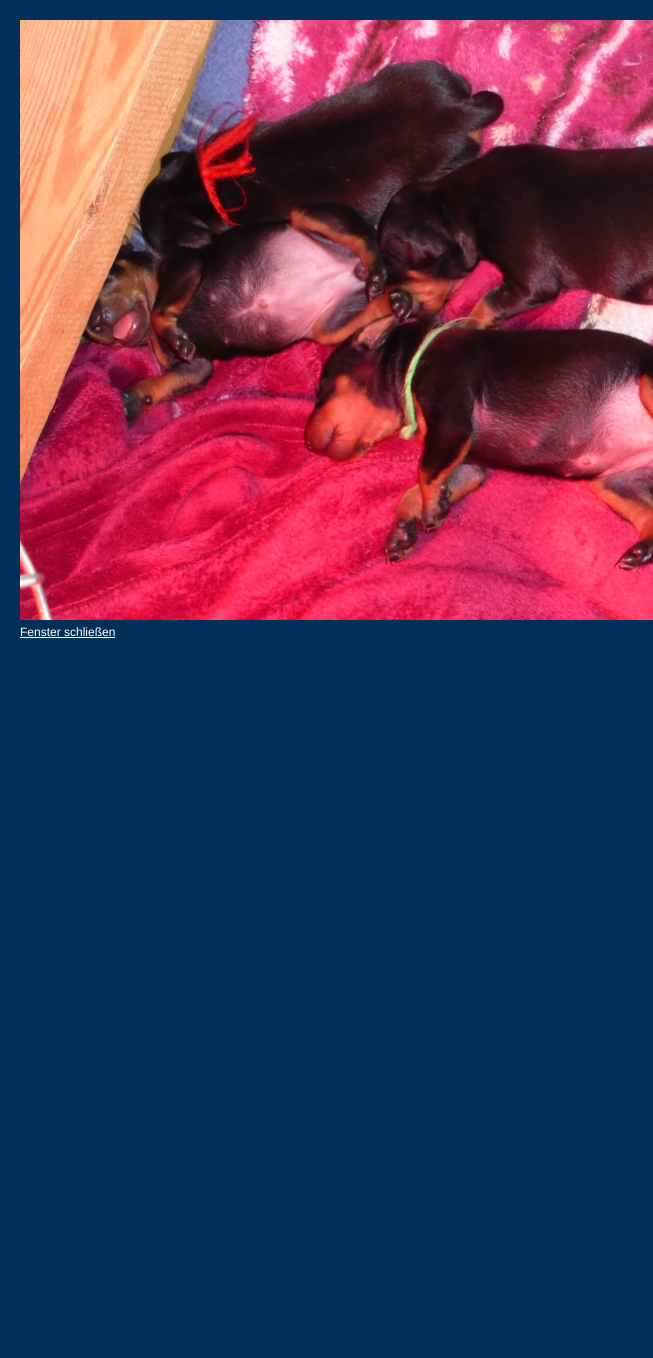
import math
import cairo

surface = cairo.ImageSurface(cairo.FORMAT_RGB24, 653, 1358)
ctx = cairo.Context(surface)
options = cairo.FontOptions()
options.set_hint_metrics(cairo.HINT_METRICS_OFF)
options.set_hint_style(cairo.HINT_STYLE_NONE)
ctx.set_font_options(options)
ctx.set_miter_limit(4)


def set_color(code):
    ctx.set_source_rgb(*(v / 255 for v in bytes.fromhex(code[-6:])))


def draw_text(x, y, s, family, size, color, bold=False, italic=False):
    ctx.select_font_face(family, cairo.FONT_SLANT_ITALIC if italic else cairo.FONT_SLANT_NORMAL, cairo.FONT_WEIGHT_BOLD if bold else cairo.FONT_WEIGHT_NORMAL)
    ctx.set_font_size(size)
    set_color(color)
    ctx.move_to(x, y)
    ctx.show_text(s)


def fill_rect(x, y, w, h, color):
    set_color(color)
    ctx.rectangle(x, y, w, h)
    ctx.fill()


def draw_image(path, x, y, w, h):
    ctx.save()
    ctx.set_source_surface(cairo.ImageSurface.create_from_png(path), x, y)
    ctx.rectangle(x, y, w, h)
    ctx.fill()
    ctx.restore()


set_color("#033058")
ctx.paint()
draw_image("assets/img1.png", 20, 20, 633, 600)
draw_text(20, 636, "Fenster schließen", "Liberation Sans", 12, "#ffffff")
fill_rect(20, 637, 95, 1, "#ffffff")
surface.write_to_png("output.png")
